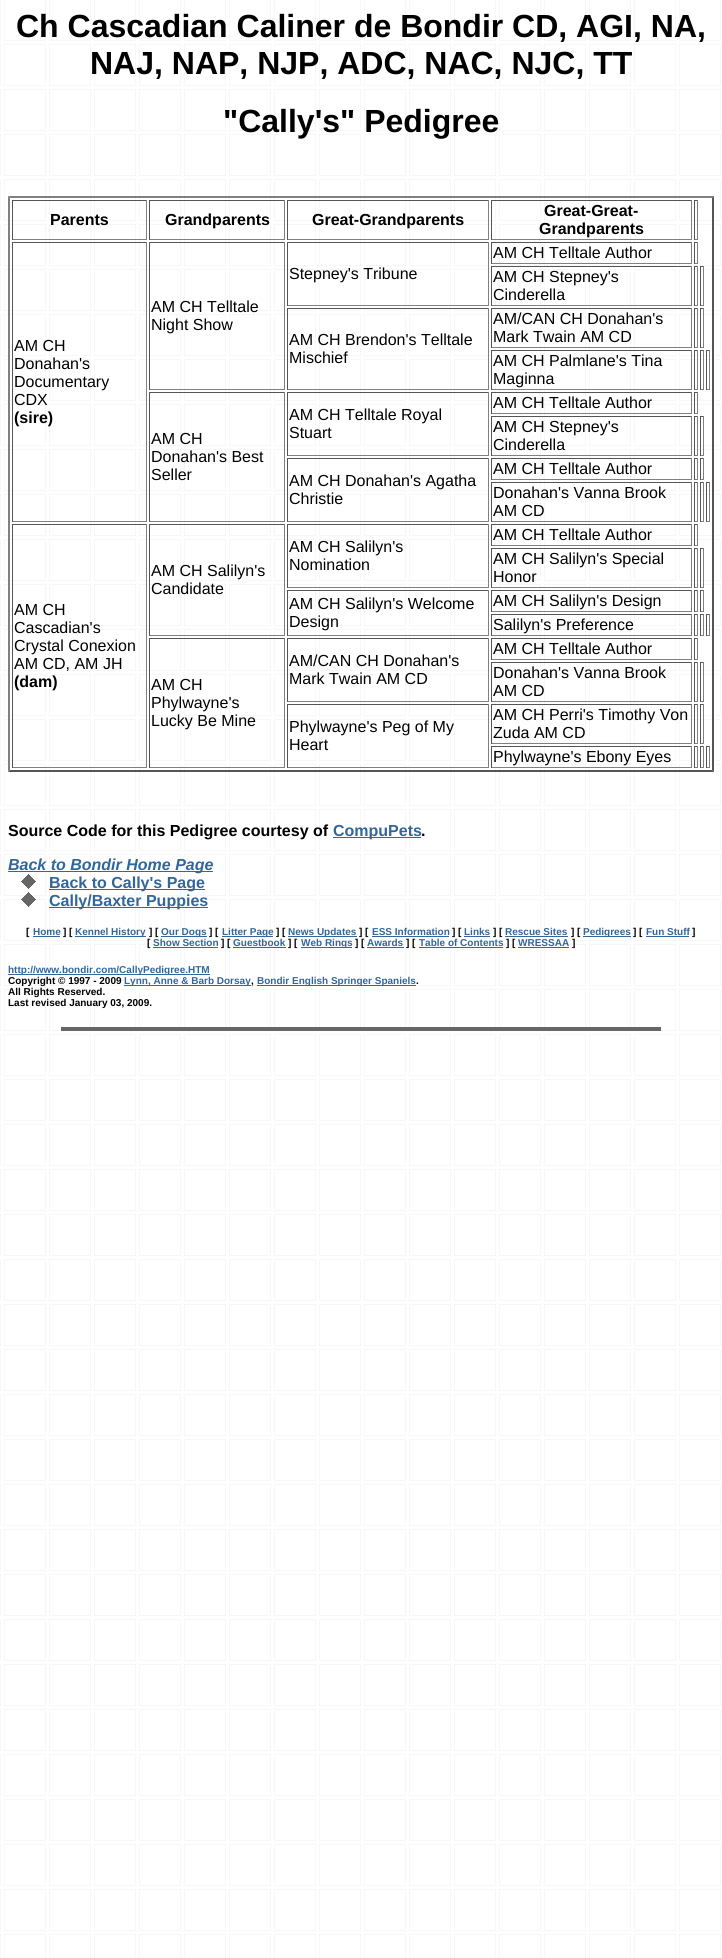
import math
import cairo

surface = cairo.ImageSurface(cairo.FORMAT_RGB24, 722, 1958)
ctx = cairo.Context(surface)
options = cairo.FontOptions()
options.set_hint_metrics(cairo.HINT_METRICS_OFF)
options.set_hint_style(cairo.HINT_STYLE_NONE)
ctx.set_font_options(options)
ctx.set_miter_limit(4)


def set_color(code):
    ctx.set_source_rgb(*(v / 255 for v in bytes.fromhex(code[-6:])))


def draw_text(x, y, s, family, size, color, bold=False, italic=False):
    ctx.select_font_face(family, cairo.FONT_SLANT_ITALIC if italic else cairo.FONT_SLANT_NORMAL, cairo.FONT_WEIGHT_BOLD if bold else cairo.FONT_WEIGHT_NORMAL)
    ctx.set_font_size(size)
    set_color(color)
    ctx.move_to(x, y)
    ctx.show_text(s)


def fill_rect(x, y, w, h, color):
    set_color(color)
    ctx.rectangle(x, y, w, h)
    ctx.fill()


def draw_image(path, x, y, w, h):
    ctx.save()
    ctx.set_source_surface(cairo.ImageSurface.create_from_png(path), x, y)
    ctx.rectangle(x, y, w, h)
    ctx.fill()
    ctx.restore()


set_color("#ffffff")
ctx.paint()
draw_image("assets/img1.png", 0, 0, 721, 1958)
draw_text(16, 37, "Ch Cascadian Caliner de Bondir CD, AGI, NA,", "Liberation Sans", 32, "#000000", bold=True)
draw_text(90, 74, "NAJ, NAP, NJP, ADC, NAC, NJC, TT", "Liberation Sans", 32, "#000000", bold=True)
draw_text(223, 132, "\"Cally's\" Pedigree", "Liberation Sans", 32, "#000000", bold=True)
set_color("#808080")
ctx.new_path()
ctx.move_to(8, 196)
ctx.line_to(714, 196)
ctx.line_to(712, 198)
ctx.line_to(10, 198)
ctx.close_path()
ctx.fill()
set_color("#555555")
ctx.new_path()
ctx.move_to(714, 196)
ctx.line_to(714, 772)
ctx.line_to(712, 770)
ctx.line_to(712, 198)
ctx.close_path()
ctx.fill()
ctx.new_path()
ctx.move_to(714, 772)
ctx.line_to(8, 772)
ctx.line_to(10, 770)
ctx.line_to(712, 770)
ctx.close_path()
ctx.fill()
set_color("#808080")
ctx.new_path()
ctx.move_to(8, 772)
ctx.line_to(8, 196)
ctx.line_to(10, 198)
ctx.line_to(10, 770)
ctx.close_path()
ctx.fill()
fill_rect(12, 200, 135, 1, "#555555")
fill_rect(146, 200, 1, 40, "#808080")
fill_rect(12, 239, 135, 1, "#808080")
fill_rect(12, 200, 1, 40, "#555555")
draw_text(50, 225, "Parents", "Liberation Sans", 16, "#000000", bold=True)
fill_rect(149, 200, 136, 1, "#555555")
fill_rect(284, 200, 1, 40, "#808080")
fill_rect(149, 239, 136, 1, "#808080")
fill_rect(149, 200, 1, 40, "#555555")
draw_text(165, 225, "Grandparents", "Liberation Sans", 16, "#000000", bold=True)
fill_rect(287, 200, 202, 1, "#555555")
fill_rect(488, 200, 1, 40, "#808080")
fill_rect(287, 239, 202, 1, "#808080")
fill_rect(287, 200, 1, 40, "#555555")
draw_text(312, 225, "Great-Grandparents", "Liberation Sans", 16, "#000000", bold=True)
fill_rect(491, 200, 201, 1, "#555555")
fill_rect(691, 200, 1, 40, "#808080")
fill_rect(491, 239, 201, 1, "#808080")
fill_rect(491, 200, 1, 40, "#555555")
draw_text(544, 216, "Great-Great-", "Liberation Sans", 16, "#000000", bold=True)
draw_text(539, 234, "Grandparents", "Liberation Sans", 16, "#000000", bold=True)
fill_rect(694, 200, 4, 1, "#555555")
fill_rect(697, 200, 1, 40, "#808080")
fill_rect(694, 239, 4, 1, "#808080")
fill_rect(694, 200, 1, 40, "#555555")
fill_rect(491, 242, 201, 1, "#555555")
fill_rect(691, 242, 1, 22, "#808080")
fill_rect(491, 263, 201, 1, "#808080")
fill_rect(491, 242, 1, 22, "#555555")
draw_text(493, 258, "AM CH Telltale Author", "Liberation Sans", 16, "#000000")
fill_rect(694, 242, 4, 1, "#555555")
fill_rect(697, 242, 1, 22, "#808080")
fill_rect(694, 263, 4, 1, "#808080")
fill_rect(694, 242, 1, 22, "#555555")
fill_rect(287, 242, 202, 1, "#555555")
fill_rect(488, 242, 1, 64, "#808080")
fill_rect(287, 305, 202, 1, "#808080")
fill_rect(287, 242, 1, 64, "#555555")
draw_text(289, 279, "Stepney's Tribune", "Liberation Sans", 16, "#000000")
fill_rect(149, 242, 136, 1, "#555555")
fill_rect(284, 242, 1, 148, "#808080")
fill_rect(149, 389, 136, 1, "#808080")
fill_rect(149, 242, 1, 148, "#555555")
draw_text(151, 312, "AM CH Telltale", "Liberation Sans", 16, "#000000")
draw_text(151, 330, "Night Show", "Liberation Sans", 16, "#000000")
fill_rect(12, 242, 135, 1, "#555555")
fill_rect(146, 242, 1, 280, "#808080")
fill_rect(12, 521, 135, 1, "#808080")
fill_rect(12, 242, 1, 280, "#555555")
draw_text(14, 351, "AM CH", "Liberation Sans", 16, "#000000")
draw_text(14, 369, "Donahan's", "Liberation Sans", 16, "#000000")
draw_text(14, 387, "Documentary", "Liberation Sans", 16, "#000000")
draw_text(14, 405, "CDX", "Liberation Sans", 16, "#000000")
draw_text(14, 423, "(sire)", "Liberation Sans", 16, "#000000", bold=True)
fill_rect(491, 266, 201, 1, "#555555")
fill_rect(691, 266, 1, 40, "#808080")
fill_rect(491, 305, 201, 1, "#808080")
fill_rect(491, 266, 1, 40, "#555555")
draw_text(493, 282, "AM CH Stepney's", "Liberation Sans", 16, "#000000")
draw_text(493, 300, "Cinderella", "Liberation Sans", 16, "#000000")
fill_rect(694, 266, 4, 1, "#555555")
fill_rect(697, 266, 1, 40, "#808080")
fill_rect(694, 305, 4, 1, "#808080")
fill_rect(694, 266, 1, 40, "#555555")
fill_rect(700, 266, 4, 1, "#555555")
fill_rect(703, 266, 1, 40, "#808080")
fill_rect(700, 305, 4, 1, "#808080")
fill_rect(700, 266, 1, 40, "#555555")
fill_rect(491, 308, 201, 1, "#555555")
fill_rect(691, 308, 1, 40, "#808080")
fill_rect(491, 347, 201, 1, "#808080")
fill_rect(491, 308, 1, 40, "#555555")
draw_text(493, 324, "AM/CAN CH Donahan's", "Liberation Sans", 16, "#000000")
draw_text(493, 342, "Mark Twain AM CD", "Liberation Sans", 16, "#000000")
fill_rect(694, 308, 4, 1, "#555555")
fill_rect(697, 308, 1, 40, "#808080")
fill_rect(694, 347, 4, 1, "#808080")
fill_rect(694, 308, 1, 40, "#555555")
fill_rect(700, 308, 4, 1, "#555555")
fill_rect(703, 308, 1, 40, "#808080")
fill_rect(700, 347, 4, 1, "#808080")
fill_rect(700, 308, 1, 40, "#555555")
fill_rect(287, 308, 202, 1, "#555555")
fill_rect(488, 308, 1, 82, "#808080")
fill_rect(287, 389, 202, 1, "#808080")
fill_rect(287, 308, 1, 82, "#555555")
draw_text(289, 345, "AM CH Brendon's Telltale", "Liberation Sans", 16, "#000000")
draw_text(289, 363, "Mischief", "Liberation Sans", 16, "#000000")
fill_rect(491, 350, 201, 1, "#555555")
fill_rect(691, 350, 1, 40, "#808080")
fill_rect(491, 389, 201, 1, "#808080")
fill_rect(491, 350, 1, 40, "#555555")
draw_text(493, 366, "AM CH Palmlane's Tina", "Liberation Sans", 16, "#000000")
draw_text(493, 384, "Maginna", "Liberation Sans", 16, "#000000")
fill_rect(694, 350, 4, 1, "#555555")
fill_rect(697, 350, 1, 40, "#808080")
fill_rect(694, 389, 4, 1, "#808080")
fill_rect(694, 350, 1, 40, "#555555")
fill_rect(700, 350, 4, 1, "#555555")
fill_rect(703, 350, 1, 40, "#808080")
fill_rect(700, 389, 4, 1, "#808080")
fill_rect(700, 350, 1, 40, "#555555")
fill_rect(706, 350, 4, 1, "#555555")
fill_rect(709, 350, 1, 40, "#808080")
fill_rect(706, 389, 4, 1, "#808080")
fill_rect(706, 350, 1, 40, "#555555")
fill_rect(491, 392, 201, 1, "#555555")
fill_rect(691, 392, 1, 22, "#808080")
fill_rect(491, 413, 201, 1, "#808080")
fill_rect(491, 392, 1, 22, "#555555")
draw_text(493, 408, "AM CH Telltale Author", "Liberation Sans", 16, "#000000")
fill_rect(694, 392, 4, 1, "#555555")
fill_rect(697, 392, 1, 22, "#808080")
fill_rect(694, 413, 4, 1, "#808080")
fill_rect(694, 392, 1, 22, "#555555")
fill_rect(287, 392, 202, 1, "#555555")
fill_rect(488, 392, 1, 64, "#808080")
fill_rect(287, 455, 202, 1, "#808080")
fill_rect(287, 392, 1, 64, "#555555")
draw_text(289, 420, "AM CH Telltale Royal", "Liberation Sans", 16, "#000000")
draw_text(289, 438, "Stuart", "Liberation Sans", 16, "#000000")
fill_rect(149, 392, 136, 1, "#555555")
fill_rect(284, 392, 1, 130, "#808080")
fill_rect(149, 521, 136, 1, "#808080")
fill_rect(149, 392, 1, 130, "#555555")
draw_text(151, 444, "AM CH", "Liberation Sans", 16, "#000000")
draw_text(151, 462, "Donahan's Best", "Liberation Sans", 16, "#000000")
draw_text(151, 480, "Seller", "Liberation Sans", 16, "#000000")
fill_rect(491, 416, 201, 1, "#555555")
fill_rect(691, 416, 1, 40, "#808080")
fill_rect(491, 455, 201, 1, "#808080")
fill_rect(491, 416, 1, 40, "#555555")
draw_text(493, 432, "AM CH Stepney's", "Liberation Sans", 16, "#000000")
draw_text(493, 450, "Cinderella", "Liberation Sans", 16, "#000000")
fill_rect(694, 416, 4, 1, "#555555")
fill_rect(697, 416, 1, 40, "#808080")
fill_rect(694, 455, 4, 1, "#808080")
fill_rect(694, 416, 1, 40, "#555555")
fill_rect(700, 416, 4, 1, "#555555")
fill_rect(703, 416, 1, 40, "#808080")
fill_rect(700, 455, 4, 1, "#808080")
fill_rect(700, 416, 1, 40, "#555555")
fill_rect(491, 458, 201, 1, "#555555")
fill_rect(691, 458, 1, 22, "#808080")
fill_rect(491, 479, 201, 1, "#808080")
fill_rect(491, 458, 1, 22, "#555555")
draw_text(493, 474, "AM CH Telltale Author", "Liberation Sans", 16, "#000000")
fill_rect(694, 458, 4, 1, "#555555")
fill_rect(697, 458, 1, 22, "#808080")
fill_rect(694, 479, 4, 1, "#808080")
fill_rect(694, 458, 1, 22, "#555555")
fill_rect(700, 458, 4, 1, "#555555")
fill_rect(703, 458, 1, 22, "#808080")
fill_rect(700, 479, 4, 1, "#808080")
fill_rect(700, 458, 1, 22, "#555555")
fill_rect(287, 458, 202, 1, "#555555")
fill_rect(488, 458, 1, 64, "#808080")
fill_rect(287, 521, 202, 1, "#808080")
fill_rect(287, 458, 1, 64, "#555555")
draw_text(289, 486, "AM CH Donahan's Agatha", "Liberation Sans", 16, "#000000")
draw_text(289, 504, "Christie", "Liberation Sans", 16, "#000000")
fill_rect(491, 482, 201, 1, "#555555")
fill_rect(691, 482, 1, 40, "#808080")
fill_rect(491, 521, 201, 1, "#808080")
fill_rect(491, 482, 1, 40, "#555555")
draw_text(493, 498, "Donahan's Vanna Brook", "Liberation Sans", 16, "#000000")
draw_text(493, 516, "AM CD", "Liberation Sans", 16, "#000000")
fill_rect(694, 482, 4, 1, "#555555")
fill_rect(697, 482, 1, 40, "#808080")
fill_rect(694, 521, 4, 1, "#808080")
fill_rect(694, 482, 1, 40, "#555555")
fill_rect(700, 482, 4, 1, "#555555")
fill_rect(703, 482, 1, 40, "#808080")
fill_rect(700, 521, 4, 1, "#808080")
fill_rect(700, 482, 1, 40, "#555555")
fill_rect(706, 482, 4, 1, "#555555")
fill_rect(709, 482, 1, 40, "#808080")
fill_rect(706, 521, 4, 1, "#808080")
fill_rect(706, 482, 1, 40, "#555555")
fill_rect(491, 524, 201, 1, "#555555")
fill_rect(691, 524, 1, 22, "#808080")
fill_rect(491, 545, 201, 1, "#808080")
fill_rect(491, 524, 1, 22, "#555555")
draw_text(493, 540, "AM CH Telltale Author", "Liberation Sans", 16, "#000000")
fill_rect(694, 524, 4, 1, "#555555")
fill_rect(697, 524, 1, 22, "#808080")
fill_rect(694, 545, 4, 1, "#808080")
fill_rect(694, 524, 1, 22, "#555555")
fill_rect(287, 524, 202, 1, "#555555")
fill_rect(488, 524, 1, 64, "#808080")
fill_rect(287, 587, 202, 1, "#808080")
fill_rect(287, 524, 1, 64, "#555555")
draw_text(289, 552, "AM CH Salilyn's", "Liberation Sans", 16, "#000000")
draw_text(289, 570, "Nomination", "Liberation Sans", 16, "#000000")
fill_rect(149, 524, 136, 1, "#555555")
fill_rect(284, 524, 1, 112, "#808080")
fill_rect(149, 635, 136, 1, "#808080")
fill_rect(149, 524, 1, 112, "#555555")
draw_text(151, 576, "AM CH Salilyn's", "Liberation Sans", 16, "#000000")
draw_text(151, 594, "Candidate", "Liberation Sans", 16, "#000000")
fill_rect(12, 524, 135, 1, "#555555")
fill_rect(146, 524, 1, 244, "#808080")
fill_rect(12, 767, 135, 1, "#808080")
fill_rect(12, 524, 1, 244, "#555555")
draw_text(14, 615, "AM CH", "Liberation Sans", 16, "#000000")
draw_text(14, 633, "Cascadian's", "Liberation Sans", 16, "#000000")
draw_text(14, 651, "Crystal Conexion", "Liberation Sans", 16, "#000000")
draw_text(14, 669, "AM CD, AM JH", "Liberation Sans", 16, "#000000")
draw_text(14, 687, "(dam)", "Liberation Sans", 16, "#000000", bold=True)
fill_rect(491, 548, 201, 1, "#555555")
fill_rect(691, 548, 1, 40, "#808080")
fill_rect(491, 587, 201, 1, "#808080")
fill_rect(491, 548, 1, 40, "#555555")
draw_text(493, 564, "AM CH Salilyn's Special", "Liberation Sans", 16, "#000000")
draw_text(493, 582, "Honor", "Liberation Sans", 16, "#000000")
fill_rect(694, 548, 4, 1, "#555555")
fill_rect(697, 548, 1, 40, "#808080")
fill_rect(694, 587, 4, 1, "#808080")
fill_rect(694, 548, 1, 40, "#555555")
fill_rect(700, 548, 4, 1, "#555555")
fill_rect(703, 548, 1, 40, "#808080")
fill_rect(700, 587, 4, 1, "#808080")
fill_rect(700, 548, 1, 40, "#555555")
fill_rect(287, 590, 202, 1, "#555555")
fill_rect(488, 590, 1, 46, "#808080")
fill_rect(287, 635, 202, 1, "#808080")
fill_rect(287, 590, 1, 46, "#555555")
draw_text(289, 609, "AM CH Salilyn's Welcome", "Liberation Sans", 16, "#000000")
draw_text(289, 627, "Design", "Liberation Sans", 16, "#000000")
fill_rect(491, 590, 201, 1, "#555555")
fill_rect(691, 590, 1, 22, "#808080")
fill_rect(491, 611, 201, 1, "#808080")
fill_rect(491, 590, 1, 22, "#555555")
draw_text(493, 606, "AM CH Salilyn's Design", "Liberation Sans", 16, "#000000")
fill_rect(694, 590, 4, 1, "#555555")
fill_rect(697, 590, 1, 22, "#808080")
fill_rect(694, 611, 4, 1, "#808080")
fill_rect(694, 590, 1, 22, "#555555")
fill_rect(700, 590, 4, 1, "#555555")
fill_rect(703, 590, 1, 22, "#808080")
fill_rect(700, 611, 4, 1, "#808080")
fill_rect(700, 590, 1, 22, "#555555")
fill_rect(491, 614, 201, 1, "#555555")
fill_rect(691, 614, 1, 22, "#808080")
fill_rect(491, 635, 201, 1, "#808080")
fill_rect(491, 614, 1, 22, "#555555")
draw_text(493, 630, "Salilyn's Preference", "Liberation Sans", 16, "#000000")
fill_rect(694, 614, 4, 1, "#555555")
fill_rect(697, 614, 1, 22, "#808080")
fill_rect(694, 635, 4, 1, "#808080")
fill_rect(694, 614, 1, 22, "#555555")
fill_rect(700, 614, 4, 1, "#555555")
fill_rect(703, 614, 1, 22, "#808080")
fill_rect(700, 635, 4, 1, "#808080")
fill_rect(700, 614, 1, 22, "#555555")
fill_rect(706, 614, 4, 1, "#555555")
fill_rect(709, 614, 1, 22, "#808080")
fill_rect(706, 635, 4, 1, "#808080")
fill_rect(706, 614, 1, 22, "#555555")
fill_rect(491, 638, 201, 1, "#555555")
fill_rect(691, 638, 1, 22, "#808080")
fill_rect(491, 659, 201, 1, "#808080")
fill_rect(491, 638, 1, 22, "#555555")
draw_text(493, 654, "AM CH Telltale Author", "Liberation Sans", 16, "#000000")
fill_rect(694, 638, 4, 1, "#555555")
fill_rect(697, 638, 1, 22, "#808080")
fill_rect(694, 659, 4, 1, "#808080")
fill_rect(694, 638, 1, 22, "#555555")
fill_rect(287, 638, 202, 1, "#555555")
fill_rect(488, 638, 1, 64, "#808080")
fill_rect(287, 701, 202, 1, "#808080")
fill_rect(287, 638, 1, 64, "#555555")
draw_text(289, 666, "AM/CAN CH Donahan's", "Liberation Sans", 16, "#000000")
draw_text(289, 684, "Mark Twain AM CD", "Liberation Sans", 16, "#000000")
fill_rect(149, 638, 136, 1, "#555555")
fill_rect(284, 638, 1, 130, "#808080")
fill_rect(149, 767, 136, 1, "#808080")
fill_rect(149, 638, 1, 130, "#555555")
draw_text(151, 690, "AM CH", "Liberation Sans", 16, "#000000")
draw_text(151, 708, "Phylwayne's", "Liberation Sans", 16, "#000000")
draw_text(151, 726, "Lucky Be Mine", "Liberation Sans", 16, "#000000")
fill_rect(491, 662, 201, 1, "#555555")
fill_rect(691, 662, 1, 40, "#808080")
fill_rect(491, 701, 201, 1, "#808080")
fill_rect(491, 662, 1, 40, "#555555")
draw_text(493, 678, "Donahan's Vanna Brook", "Liberation Sans", 16, "#000000")
draw_text(493, 696, "AM CD", "Liberation Sans", 16, "#000000")
fill_rect(694, 662, 4, 1, "#555555")
fill_rect(697, 662, 1, 40, "#808080")
fill_rect(694, 701, 4, 1, "#808080")
fill_rect(694, 662, 1, 40, "#555555")
fill_rect(700, 662, 4, 1, "#555555")
fill_rect(703, 662, 1, 40, "#808080")
fill_rect(700, 701, 4, 1, "#808080")
fill_rect(700, 662, 1, 40, "#555555")
fill_rect(287, 704, 202, 1, "#555555")
fill_rect(488, 704, 1, 64, "#808080")
fill_rect(287, 767, 202, 1, "#808080")
fill_rect(287, 704, 1, 64, "#555555")
draw_text(289, 732, "Phylwayne's Peg of My", "Liberation Sans", 16, "#000000")
draw_text(289, 750, "Heart", "Liberation Sans", 16, "#000000")
fill_rect(491, 704, 201, 1, "#555555")
fill_rect(691, 704, 1, 40, "#808080")
fill_rect(491, 743, 201, 1, "#808080")
fill_rect(491, 704, 1, 40, "#555555")
draw_text(493, 720, "AM CH Perri's Timothy Von", "Liberation Sans", 16, "#000000")
draw_text(493, 738, "Zuda AM CD", "Liberation Sans", 16, "#000000")
fill_rect(694, 704, 4, 1, "#555555")
fill_rect(697, 704, 1, 40, "#808080")
fill_rect(694, 743, 4, 1, "#808080")
fill_rect(694, 704, 1, 40, "#555555")
fill_rect(700, 704, 4, 1, "#555555")
fill_rect(703, 704, 1, 40, "#808080")
fill_rect(700, 743, 4, 1, "#808080")
fill_rect(700, 704, 1, 40, "#555555")
fill_rect(491, 746, 201, 1, "#555555")
fill_rect(691, 746, 1, 22, "#808080")
fill_rect(491, 767, 201, 1, "#808080")
fill_rect(491, 746, 1, 22, "#555555")
draw_text(493, 762, "Phylwayne's Ebony Eyes", "Liberation Sans", 16, "#000000")
fill_rect(694, 746, 4, 1, "#555555")
fill_rect(697, 746, 1, 22, "#808080")
fill_rect(694, 767, 4, 1, "#808080")
fill_rect(694, 746, 1, 22, "#555555")
fill_rect(700, 746, 4, 1, "#555555")
fill_rect(703, 746, 1, 22, "#808080")
fill_rect(700, 767, 4, 1, "#808080")
fill_rect(700, 746, 1, 22, "#555555")
fill_rect(706, 746, 4, 1, "#555555")
fill_rect(709, 746, 1, 22, "#808080")
fill_rect(706, 767, 4, 1, "#808080")
fill_rect(706, 746, 1, 22, "#555555")
draw_text(8, 836, "Source Code for this Pedigree courtesy of", "Liberation Sans", 16, "#000000", bold=True)
fill_rect(333, 837, 88, 1, "#336699")
draw_text(333, 836, "CompuPets", "Liberation Sans", 16, "#336699", bold=True)
draw_text(421, 836, ".", "Liberation Sans", 16, "#000000", bold=True)
fill_rect(8, 871, 205, 1, "#336699")
draw_text(8, 870, "Back to Bondir Home Page", "Liberation Sans", 16, "#336699", bold=True, italic=True)
draw_image("assets/img2.png", 21, 874, 15, 15)
fill_rect(49, 889, 156, 1, "#336699")
draw_text(49, 888, "Back to Cally's Page", "Liberation Sans", 16, "#336699", bold=True)
draw_image("assets/img3.png", 21, 892, 15, 15)
fill_rect(49, 907, 159, 1, "#336699")
draw_text(49, 906, "Cally/Baxter Puppies", "Liberation Sans", 16, "#336699", bold=True)
draw_text(26, 935, "[", "Liberation Sans", 10, "#000000", bold=True)
draw_text(33, 935, "Home", "Liberation Sans", 10, "#336699", bold=True)
fill_rect(33, 936, 27, 1, "#336699")
draw_text(63, 935, "] [", "Liberation Sans", 10, "#000000", bold=True)
fill_rect(75, 936, 71, 1, "#336699")
draw_text(75, 935, "Kennel History", "Liberation Sans", 10, "#336699", bold=True)
draw_text(149, 935, "] [", "Liberation Sans", 10, "#000000", bold=True)
fill_rect(161, 936, 46, 1, "#336699")
draw_text(161, 935, "Our Dogs", "Liberation Sans", 10, "#336699", bold=True)
draw_text(209, 935, "] [", "Liberation Sans", 10, "#000000", bold=True)
fill_rect(222, 936, 51, 1, "#336699")
draw_text(222, 935, "Litter Page", "Liberation Sans", 10, "#336699", bold=True)
draw_text(276, 935, "] [", "Liberation Sans", 10, "#000000", bold=True)
fill_rect(288, 936, 69, 1, "#336699")
draw_text(288, 935, "News Updates", "Liberation Sans", 10, "#336699", bold=True)
draw_text(359, 935, "] [", "Liberation Sans", 10, "#000000", bold=True)
draw_text(372, 935, "ESS Information", "Liberation Sans", 10, "#336699", bold=True)
fill_rect(372, 936, 77, 1, "#336699")
draw_text(452, 935, "] [", "Liberation Sans", 10, "#000000", bold=True)
fill_rect(464, 936, 26, 1, "#336699")
draw_text(464, 935, "Links", "Liberation Sans", 10, "#336699", bold=True)
draw_text(493, 935, "] [", "Liberation Sans", 10, "#000000", bold=True)
fill_rect(505, 936, 63, 1, "#336699")
draw_text(505, 935, "Rescue Sites", "Liberation Sans", 10, "#336699", bold=True)
draw_text(571, 935, "] [", "Liberation Sans", 10, "#000000", bold=True)
fill_rect(583, 936, 48, 1, "#336699")
draw_text(583, 935, "Pedigrees", "Liberation Sans", 10, "#336699", bold=True)
draw_text(633, 935, "] [", "Liberation Sans", 10, "#000000", bold=True)
draw_text(646, 935, "Fun Stuff", "Liberation Sans", 10, "#336699", bold=True)
fill_rect(646, 936, 43, 1, "#336699")
draw_text(692, 935, "]", "Liberation Sans", 10, "#000000", bold=True)
draw_text(147, 946, "[", "Liberation Sans", 10, "#000000", bold=True)
draw_text(153, 946, "Show Section", "Liberation Sans", 10, "#336699", bold=True)
fill_rect(153, 947, 65, 1, "#336699")
draw_text(221, 946, "] [", "Liberation Sans", 10, "#000000", bold=True)
fill_rect(233, 947, 53, 1, "#336699")
draw_text(233, 946, "Guestbook", "Liberation Sans", 10, "#336699", bold=True)
draw_text(288, 946, "] [", "Liberation Sans", 10, "#000000", bold=True)
fill_rect(301, 947, 51, 1, "#336699")
draw_text(301, 946, "Web Rings", "Liberation Sans", 10, "#336699", bold=True)
draw_text(355, 946, "] [", "Liberation Sans", 10, "#000000", bold=True)
fill_rect(367, 947, 37, 1, "#336699")
draw_text(367, 946, "Awards", "Liberation Sans", 10, "#336699", bold=True)
draw_text(406, 946, "] [", "Liberation Sans", 10, "#000000", bold=True)
draw_text(419, 946, "Table of Contents", "Liberation Sans", 10, "#336699", bold=True)
fill_rect(419, 947, 84, 1, "#336699")
draw_text(506, 946, "] [", "Liberation Sans", 10, "#000000", bold=True)
draw_text(518, 946, "WRESSAA", "Liberation Sans", 10, "#336699", bold=True)
fill_rect(518, 947, 51, 1, "#336699")
draw_text(572, 946, "]", "Liberation Sans", 10, "#000000", bold=True)
fill_rect(8, 974, 202, 1, "#336699")
draw_text(8, 973, "http://www.bondir.com/CallyPedigree.HTM", "Liberation Sans", 10, "#336699", bold=True)
draw_text(8, 984, "Copyright © 1997 - 2009", "Liberation Sans", 10, "#000000", bold=True)
fill_rect(124, 985, 127, 1, "#336699")
draw_text(124, 984, "Lynn, Anne & Barb Dorsay", "Liberation Sans", 10, "#336699", bold=True)
draw_text(251, 984, ",", "Liberation Sans", 10, "#000000", bold=True)
fill_rect(257, 985, 159, 1, "#336699")
draw_text(257, 984, "Bondir English Springer Spaniels", "Liberation Sans", 10, "#336699", bold=True)
draw_text(416, 984, ".", "Liberation Sans", 10, "#000000", bold=True)
draw_text(8, 995, "All Rights Reserved.", "Liberation Sans", 10, "#000000", bold=True)
draw_text(8, 1006, "Last revised January 03, 2009.", "Liberation Sans", 10, "#000000", bold=True)
fill_rect(61, 1027, 600, 4, "#666666")
surface.write_to_png("output.png")
